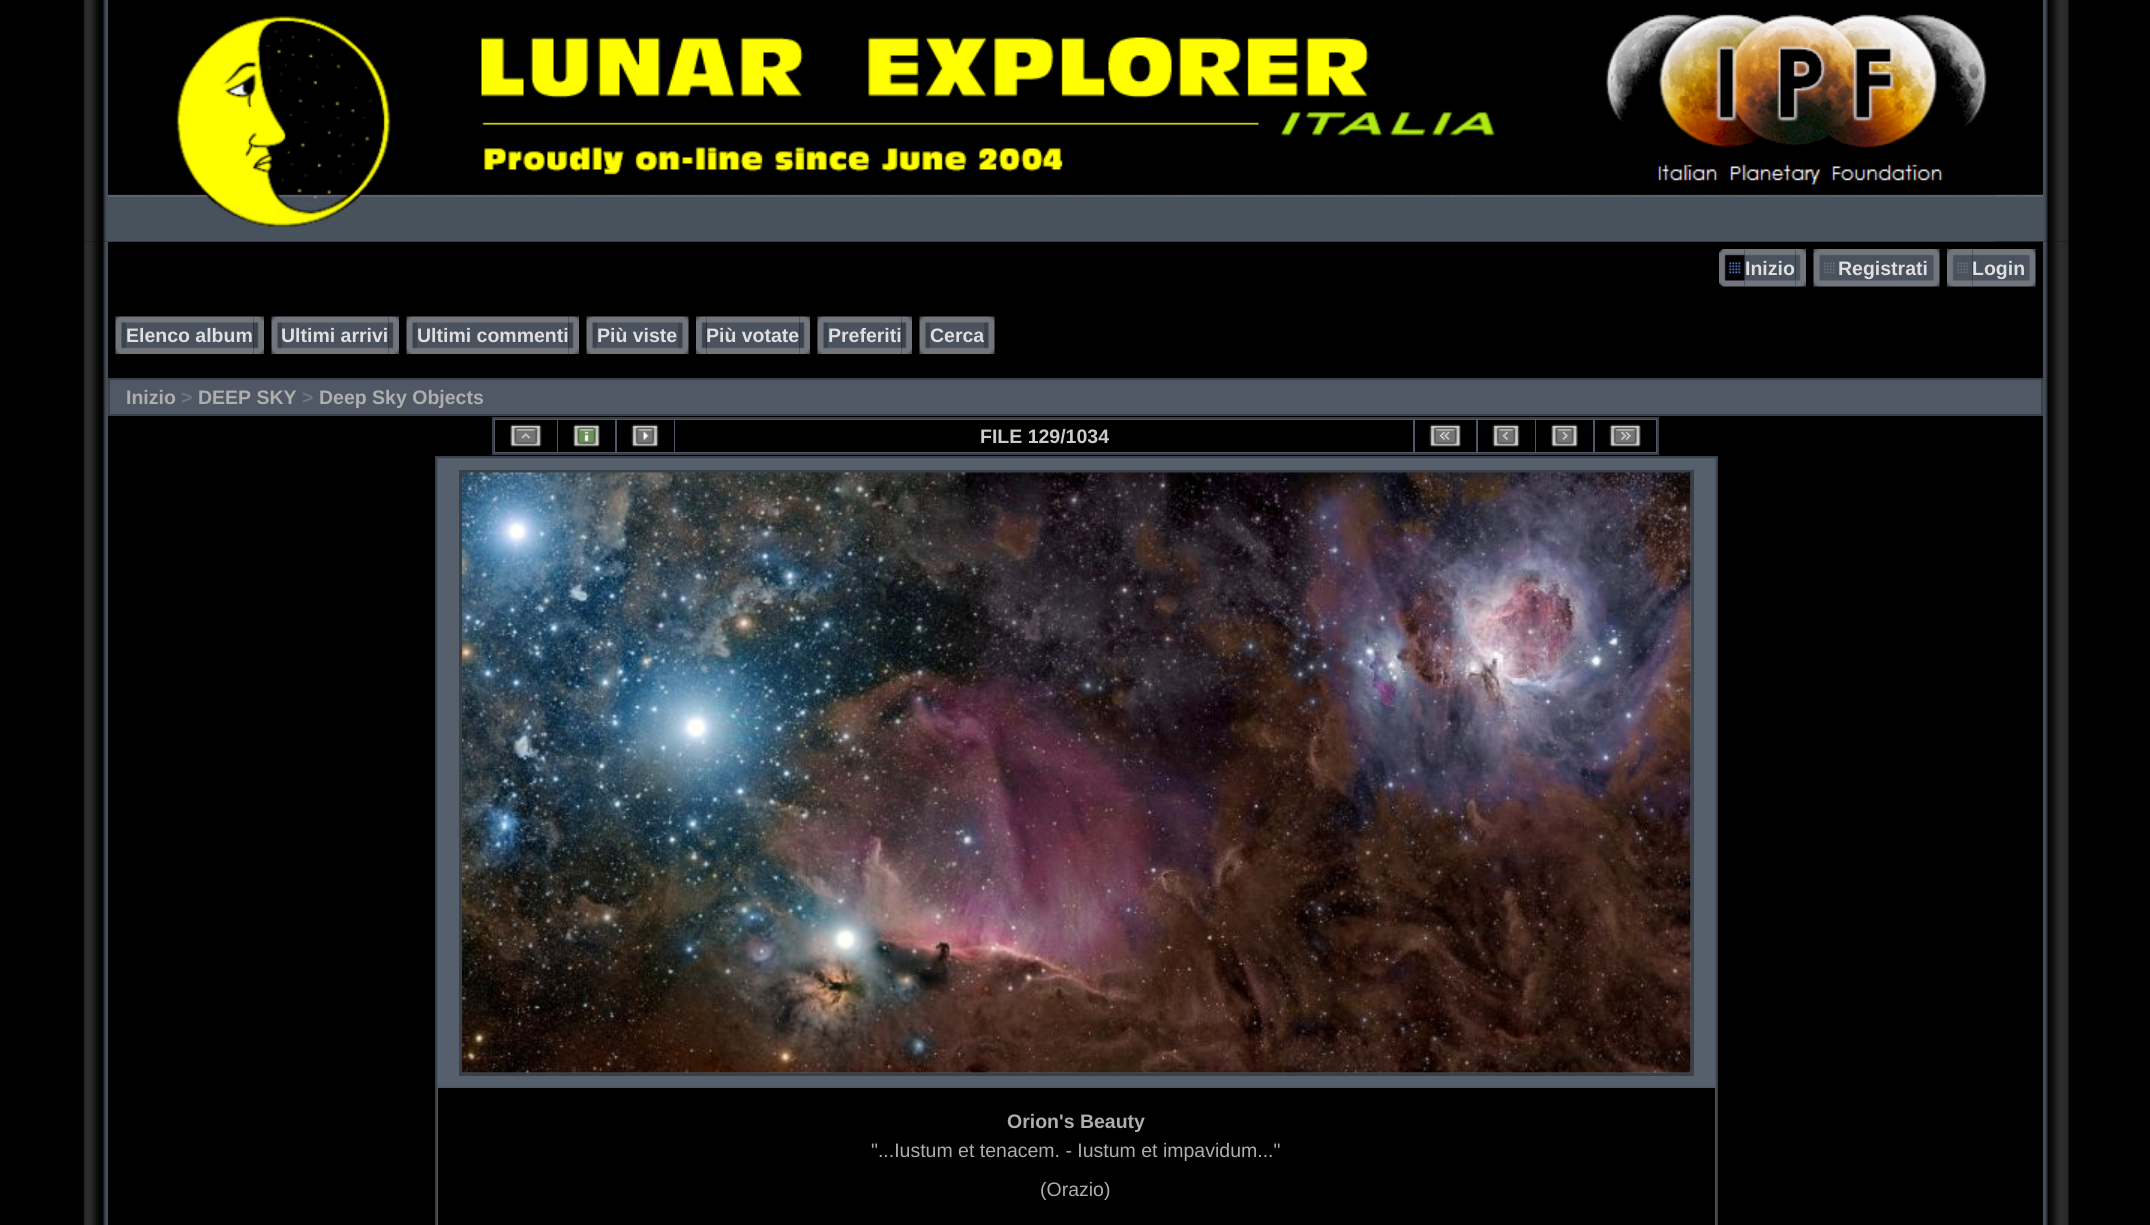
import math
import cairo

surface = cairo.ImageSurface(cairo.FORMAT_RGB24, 2150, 1225)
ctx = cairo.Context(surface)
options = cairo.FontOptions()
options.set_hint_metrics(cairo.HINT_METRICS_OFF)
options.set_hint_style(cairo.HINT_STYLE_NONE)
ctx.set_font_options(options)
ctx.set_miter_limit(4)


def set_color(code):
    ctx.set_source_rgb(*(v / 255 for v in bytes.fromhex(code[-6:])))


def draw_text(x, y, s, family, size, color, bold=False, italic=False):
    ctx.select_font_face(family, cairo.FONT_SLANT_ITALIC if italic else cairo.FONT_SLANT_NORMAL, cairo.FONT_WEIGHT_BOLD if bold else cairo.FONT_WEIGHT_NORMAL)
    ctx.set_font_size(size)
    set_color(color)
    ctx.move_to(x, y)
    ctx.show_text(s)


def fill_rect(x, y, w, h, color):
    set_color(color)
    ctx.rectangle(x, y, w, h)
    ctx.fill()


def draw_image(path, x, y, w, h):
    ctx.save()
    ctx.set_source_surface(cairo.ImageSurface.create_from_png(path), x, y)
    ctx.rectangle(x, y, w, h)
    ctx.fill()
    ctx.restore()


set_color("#000000")
ctx.paint()
draw_image("assets/img1.png", 83, 0, 25, 242)
draw_image("assets/img2.png", 108, 194, 1935, 48)
draw_image("assets/img3.png", 108, 14, 1887, 228)
draw_image("assets/img4.png", 2043, 0, 26, 242)
draw_image("assets/img5.png", 83, 241, 25, 984)
draw_image("assets/img7.png", 1744, 249, 52, 38)
draw_image("assets/img6.png", 1719, 249, 26, 38)
draw_text(1745, 275, "Inizio", "Liberation Sans", 19.5, "#dfdfdf", bold=True)
draw_image("assets/img8.png", 1795, 249, 11, 38)
draw_image("assets/img9.png", 1813, 249, 26, 38)
draw_image("assets/img10.png", 1839, 249, 90, 38)
draw_text(1838, 275, "Registrati", "Liberation Sans", 19.5, "#dfdfdf", bold=True)
draw_image("assets/img11.png", 1929, 249, 11, 38)
draw_image("assets/img13.png", 1972, 249, 53, 38)
draw_image("assets/img12.png", 1947, 249, 26, 38)
draw_text(1972, 275, "Login", "Liberation Sans", 19.5, "#dfdfdf", bold=True)
draw_image("assets/img11.png", 2025, 249, 11, 38)
draw_image("assets/img14.png", 115, 316, 11, 38)
draw_image("assets/img15.png", 126, 316, 128, 38)
draw_text(126, 342, "Elenco album", "Liberation Sans", 19.5, "#dfdfdf", bold=True)
draw_image("assets/img16.png", 253, 316, 11, 38)
draw_image("assets/img14.png", 271, 316, 11, 38)
draw_image("assets/img17.png", 282, 316, 107, 38)
draw_text(281, 342, "Ultimi arrivi", "Liberation Sans", 19.5, "#dfdfdf", bold=True)
draw_image("assets/img18.png", 388, 316, 11, 38)
draw_image("assets/img19.png", 406, 316, 11, 38)
draw_image("assets/img20.png", 417, 316, 152, 38)
draw_text(417, 342, "Ultimi commenti", "Liberation Sans", 19.5, "#dfdfdf", bold=True)
draw_image("assets/img18.png", 568, 316, 11, 38)
draw_image("assets/img19.png", 586, 316, 11, 38)
draw_image("assets/img21.png", 597, 316, 81, 38)
draw_text(597, 342, "Più viste", "Liberation Sans", 19.5, "#dfdfdf", bold=True)
draw_image("assets/img22.png", 678, 316, 11, 38)
draw_image("assets/img24.png", 706, 316, 94, 38)
draw_image("assets/img23.png", 696, 316, 11, 38)
draw_text(706, 342, "Più votate", "Liberation Sans", 19.5, "#dfdfdf", bold=True)
draw_image("assets/img16.png", 799, 316, 11, 38)
draw_image("assets/img14.png", 817, 316, 11, 38)
draw_image("assets/img25.png", 828, 316, 74, 38)
draw_text(828, 342, "Preferiti", "Liberation Sans", 19.5, "#dfdfdf", bold=True)
draw_image("assets/img16.png", 901, 316, 11, 38)
draw_image("assets/img14.png", 919, 316, 11, 38)
draw_image("assets/img26.png", 930, 316, 54, 38)
draw_text(930, 342, "Cerca", "Liberation Sans", 19.5, "#dfdfdf", bold=True)
draw_image("assets/img22.png", 984, 316, 11, 38)
set_color("#4f5864")
ctx.rectangle(109, 379, 1933, 36)
ctx.fill_preserve()
set_color("#394049")
ctx.stroke()
draw_text(126, 404, "Inizio", "Liberation Sans", 19.5, "#aeaeae", bold=True)
draw_text(181, 404, ">", "Liberation Sans", 19.5, "#6a7786", bold=True)
draw_text(198, 404, "DEEP SKY", "Liberation Sans", 19.5, "#aeaeae", bold=True)
draw_text(302, 404, ">", "Liberation Sans", 19.5, "#6a7786", bold=True)
draw_text(319, 404, "Deep Sky Objects", "Liberation Sans", 19.5, "#aeaeae", bold=True)
set_color("#4f5864")
ctx.rectangle(493, 418, 1165, 36)
ctx.fill_preserve()
set_color("#394049")
ctx.stroke()
fill_rect(495, 420, 62, 32, "#000000")
draw_image("assets/img27.png", 510, 424, 32, 23)
fill_rect(558, 420, 57, 32, "#000000")
draw_image("assets/img28.png", 573, 424, 27, 23)
fill_rect(617, 420, 57, 32, "#000000")
draw_image("assets/img29.png", 631, 424, 28, 23)
fill_rect(675, 420, 738, 32, "#000000")
draw_text(980, 443, "FILE 129/1034", "Liberation Sans", 19.5, "#cccccc", bold=True)
fill_rect(1415, 420, 61, 32, "#000000")
draw_image("assets/img30.png", 1429, 424, 32, 23)
fill_rect(1478, 420, 57, 32, "#000000")
draw_image("assets/img31.png", 1492, 424, 28, 23)
fill_rect(1536, 420, 57, 32, "#000000")
draw_image("assets/img32.png", 1551, 424, 27, 23)
fill_rect(1595, 420, 61, 32, "#000000")
draw_image("assets/img33.png", 1609, 424, 32, 23)
set_color("#4f5864")
ctx.rectangle(436, 457, 1281, 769)
ctx.fill_preserve()
set_color("#394049")
ctx.stroke()
fill_rect(438, 459, 1277, 627, "#56606d")
ctx.rectangle(460.5, 471.5, 1232, 603)
set_color("#394048")
ctx.set_line_width(3)
ctx.stroke()
draw_image("assets/img34.png", 462, 472, 1229, 601)
fill_rect(438, 1088, 1277, 137, "#000000")
draw_text(1007, 1128, "Orion's Beauty", "Liberation Sans", 19.5, "#aeaeae", bold=True)
draw_text(871, 1157, "\"...Iustum et tenacem. - Iustum et impavidum...\"", "Liberation Sans", 19.5, "#aeaeae")
draw_text(1040, 1196, "(Orazio)", "Liberation Sans", 19.5, "#aeaeae")
draw_image("assets/img35.png", 2043, 241, 26, 984)
surface.write_to_png("output.png")
